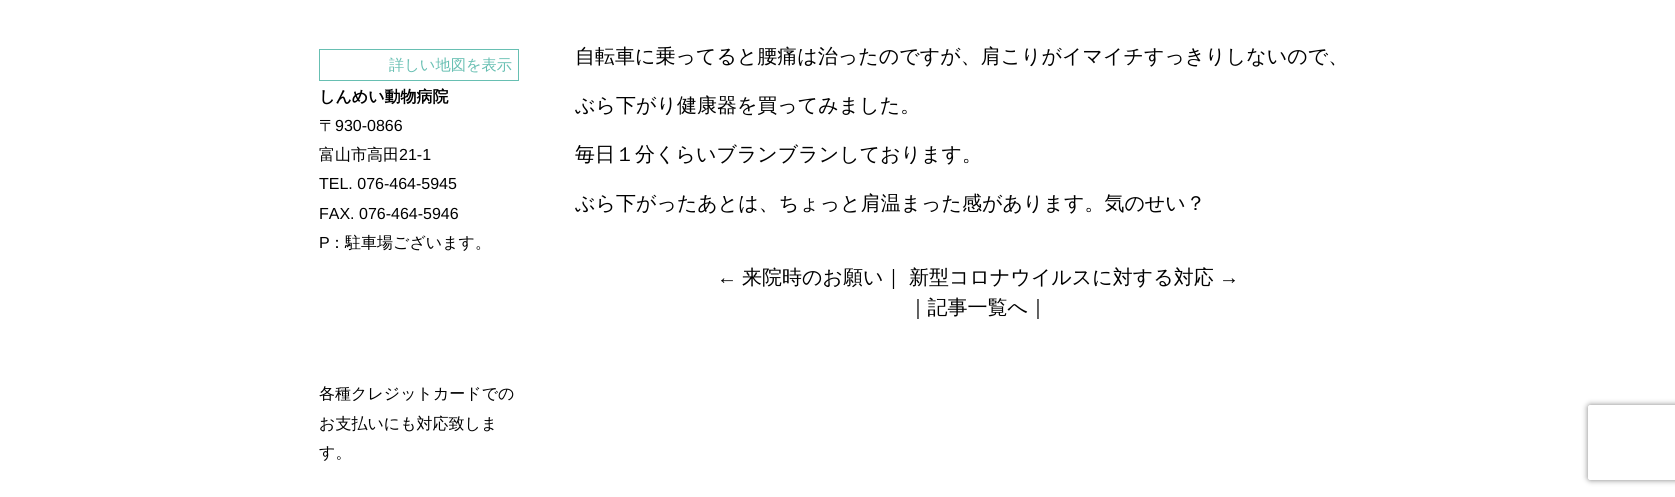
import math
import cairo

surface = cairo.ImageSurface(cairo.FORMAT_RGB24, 1675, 497)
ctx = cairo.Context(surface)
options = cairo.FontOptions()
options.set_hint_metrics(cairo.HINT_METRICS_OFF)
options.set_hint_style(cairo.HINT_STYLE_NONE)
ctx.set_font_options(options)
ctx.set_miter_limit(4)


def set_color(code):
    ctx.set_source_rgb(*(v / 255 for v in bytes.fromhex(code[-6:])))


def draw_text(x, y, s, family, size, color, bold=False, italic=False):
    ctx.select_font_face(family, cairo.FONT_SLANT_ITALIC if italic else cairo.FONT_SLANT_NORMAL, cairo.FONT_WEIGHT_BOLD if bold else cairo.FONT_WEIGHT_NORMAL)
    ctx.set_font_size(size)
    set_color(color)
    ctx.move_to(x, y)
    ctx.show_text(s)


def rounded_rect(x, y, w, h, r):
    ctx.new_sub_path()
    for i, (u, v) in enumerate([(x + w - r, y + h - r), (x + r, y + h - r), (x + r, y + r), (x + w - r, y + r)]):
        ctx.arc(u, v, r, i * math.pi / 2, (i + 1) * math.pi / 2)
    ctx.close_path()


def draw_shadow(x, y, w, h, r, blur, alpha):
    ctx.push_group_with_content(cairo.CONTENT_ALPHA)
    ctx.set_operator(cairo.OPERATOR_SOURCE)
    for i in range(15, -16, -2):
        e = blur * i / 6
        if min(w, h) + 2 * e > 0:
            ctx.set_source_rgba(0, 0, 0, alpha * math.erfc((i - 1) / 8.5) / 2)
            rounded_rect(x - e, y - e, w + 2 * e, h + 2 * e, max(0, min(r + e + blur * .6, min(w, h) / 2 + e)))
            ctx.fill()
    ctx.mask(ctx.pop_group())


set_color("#ffffff")
ctx.paint()
ctx.rectangle(319.5, 49.5, 199, 31)
set_color("#67bfb2")
ctx.set_line_width(1)
ctx.stroke()
draw_text(389, 70, "詳しい地図を表示", "WenQuanYi Zen Hei Medium", 15.25, "#67bfb2")
draw_text(319, 102, "しんめい動物病院", "WenQuanYi Zen Hei", 16, "#000000", bold=True)
draw_text(319, 131, "〒", "WenQuanYi Zen Hei Medium", 16, "#000000")
draw_text(335, 131, "930-0866", "Liberation Sans", 16, "#000000")
draw_text(319, 160, "富山市高田", "WenQuanYi Zen Hei Medium", 16, "#000000")
draw_text(399, 160, "21-1", "Liberation Sans", 16, "#000000")
draw_text(319, 189, "TEL. 076-464-5945", "Liberation Sans", 16, "#000000")
draw_text(319, 219, "FAX. 076-464-5946", "Liberation Sans", 16, "#000000")
draw_text(319, 248, "P", "Liberation Sans", 16, "#000000")
draw_text(329, 248, "：駐車場ございます。", "WenQuanYi Zen Hei Medium", 16, "#000000")
draw_text(319, 399, "各種クレジットカードでの", "WenQuanYi Zen Hei Medium", 16, "#000000")
draw_text(319, 429, "お支払いにも対応致しま", "WenQuanYi Zen Hei Medium", 16, "#000000")
draw_text(319, 458, "す。", "WenQuanYi Zen Hei Medium", 16, "#000000")
draw_text(575, 63, "自転車に乗ってると腰痛は治ったのですが、肩こりがイマイチすっきりしないので、", "WenQuanYi Zen Hei Medium", 20, "#000000")
draw_text(575, 112, "ぶら下がり健康器を買ってみました。", "WenQuanYi Zen Hei Medium", 20, "#000000")
draw_text(575, 161, "毎日１分くらいブランブランしております。", "WenQuanYi Zen Hei Medium", 20, "#000000")
draw_text(575, 210, "ぶら下がったあとは、ちょっと肩温まった感があります。気のせい？", "WenQuanYi Zen Hei Medium", 20, "#000000")
draw_text(717, 284, "←", "Liberation Sans", 20, "#000000")
draw_text(742, 284, "来院時のお願い｜", "WenQuanYi Zen Hei Medium", 20, "#000000")
draw_text(909, 284, "新型コロナウイルスに対する対応", "WenQuanYi Zen Hei Medium", 20, "#000000")
draw_text(1219, 284, "→", "Liberation Sans", 20, "#000000")
draw_text(908, 314, "｜記事一覧へ｜", "WenQuanYi Zen Hei Medium", 20, "#000000")
ctx.save()
ctx.set_fill_rule(cairo.FILL_RULE_EVEN_ODD)
ctx.new_path()
ctx.move_to(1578, 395)
ctx.line_to(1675, 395)
ctx.line_to(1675, 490)
ctx.line_to(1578, 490)
ctx.close_path()
ctx.move_to(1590.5, 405)
ctx.line_to(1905.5, 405)
ctx.curve_to(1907, 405, 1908, 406, 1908, 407.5)
ctx.line_to(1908, 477.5)
ctx.curve_to(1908, 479, 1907, 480, 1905.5, 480)
ctx.line_to(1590.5, 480)
ctx.curve_to(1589, 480, 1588, 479, 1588, 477.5)
ctx.line_to(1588, 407.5)
ctx.curve_to(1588, 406, 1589, 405, 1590.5, 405)
ctx.close_path()
ctx.clip()
set_color("#808080")
draw_shadow(1588, 405, 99, 75, 2.5, 3, 1)
ctx.restore()
surface.write_to_png("output.png")
